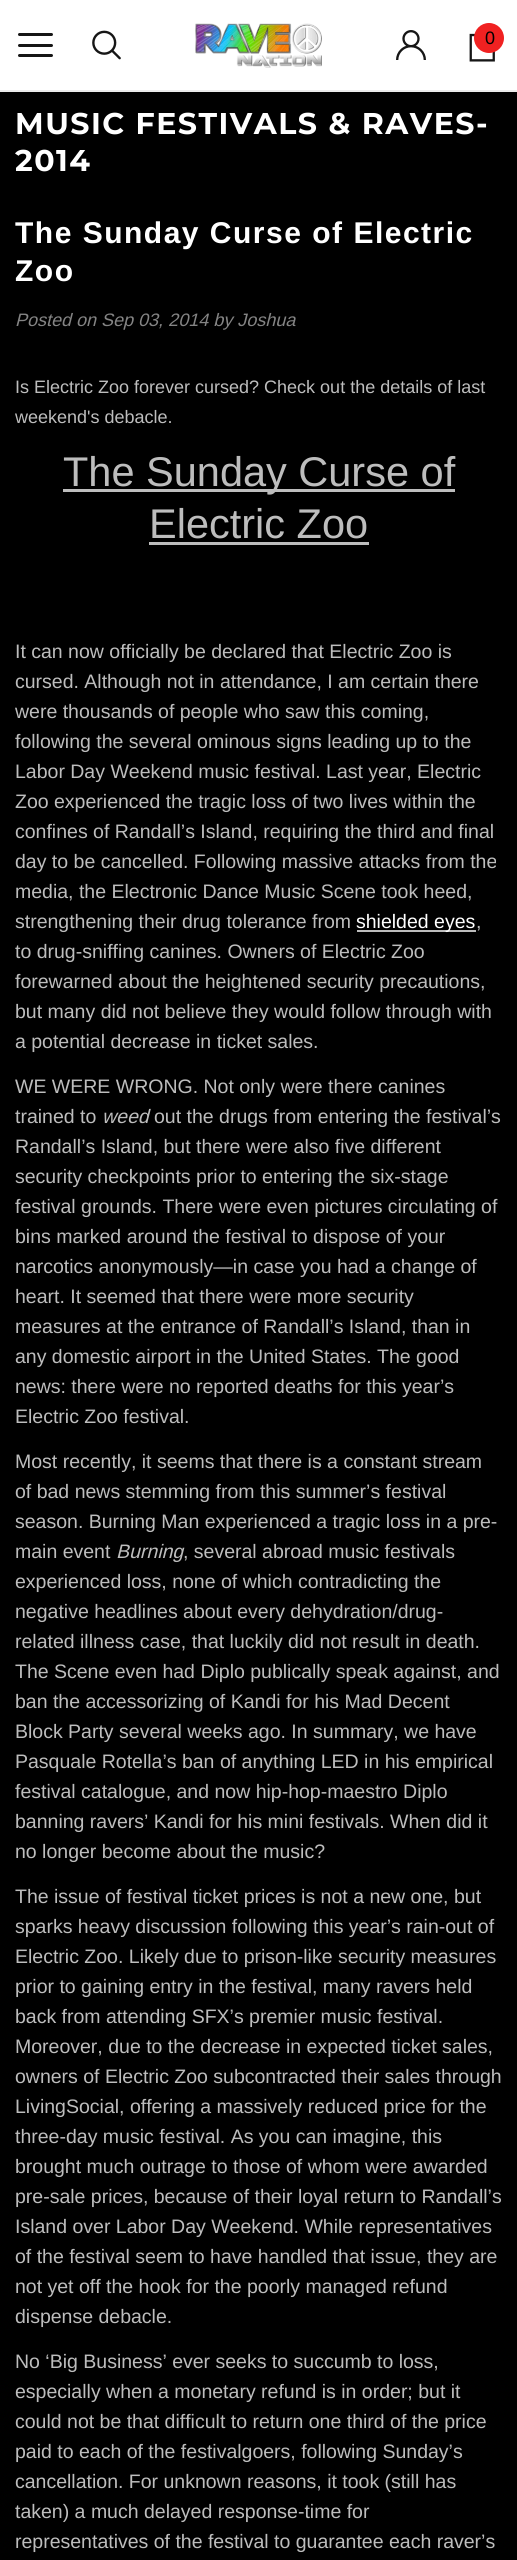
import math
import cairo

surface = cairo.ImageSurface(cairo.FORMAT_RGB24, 517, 2560)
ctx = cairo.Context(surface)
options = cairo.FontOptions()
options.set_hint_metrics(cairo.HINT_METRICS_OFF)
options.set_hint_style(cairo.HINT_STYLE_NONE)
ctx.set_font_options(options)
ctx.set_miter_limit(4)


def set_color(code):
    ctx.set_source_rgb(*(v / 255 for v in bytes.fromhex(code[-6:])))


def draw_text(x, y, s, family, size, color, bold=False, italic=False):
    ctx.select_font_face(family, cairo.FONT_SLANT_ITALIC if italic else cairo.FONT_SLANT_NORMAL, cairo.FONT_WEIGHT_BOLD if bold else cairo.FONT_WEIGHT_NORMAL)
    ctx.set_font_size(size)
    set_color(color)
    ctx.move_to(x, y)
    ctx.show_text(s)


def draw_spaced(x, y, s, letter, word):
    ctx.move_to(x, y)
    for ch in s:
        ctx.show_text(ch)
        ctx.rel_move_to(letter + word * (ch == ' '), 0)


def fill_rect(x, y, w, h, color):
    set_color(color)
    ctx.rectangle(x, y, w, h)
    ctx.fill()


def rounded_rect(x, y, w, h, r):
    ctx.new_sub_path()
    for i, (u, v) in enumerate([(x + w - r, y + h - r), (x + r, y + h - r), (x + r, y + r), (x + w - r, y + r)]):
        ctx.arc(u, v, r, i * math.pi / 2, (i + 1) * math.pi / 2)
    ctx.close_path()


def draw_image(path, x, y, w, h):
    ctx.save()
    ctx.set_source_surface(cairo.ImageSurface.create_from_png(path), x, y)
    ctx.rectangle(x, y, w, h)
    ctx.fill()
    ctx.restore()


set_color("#000000")
ctx.paint()
set_color("#ebebeb")
ctx.new_path()
ctx.move_to(0, 90)
ctx.line_to(0, 92)
ctx.line_to(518, 92)
ctx.line_to(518, 2)
ctx.line_to(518, 90)
ctx.close_path()
ctx.fill()
fill_rect(0, 0, 517, 90, "#ffffff")
set_color("#161616")
rounded_rect(18, 44, 35, 3, 1.5)
ctx.fill()
rounded_rect(18, 33, 35, 3, 1.5)
ctx.fill()
rounded_rect(18, 54, 35, 3, 1.5)
ctx.fill()
draw_image("assets/img1.png", 92, 30, 29, 30)
draw_image("assets/img2.png", 195, 23, 127, 45)
draw_image("assets/img3.png", 396, 30, 30, 30)
draw_image("assets/img4.png", 469, 30, 26, 32)
set_color("#f02121")
ctx.arc(489, 38, 15, 0, 2 * math.pi)
ctx.fill()
draw_text(485, 44, "0", "Arimo", 18, "#000000")
ctx.select_font_face("Montserrat", cairo.FONT_SLANT_NORMAL, cairo.FONT_WEIGHT_BOLD)
ctx.set_font_size(30)
set_color("#ffffff")
draw_spaced(15, 134, "MUSIC FESTIVALS & RAVES-", 1.5, 0)
draw_spaced(15, 171, "2014", 1.5, 0)
ctx.select_font_face("Arimo", cairo.FONT_SLANT_NORMAL, cairo.FONT_WEIGHT_BOLD)
draw_spaced(15, 243, "The Sunday Curse of Electric", 1.5, 0)
draw_spaced(15, 281, "Zoo", 1.5, 0)
draw_text(15, 326, "Posted on Sep 03, 2014 by Joshua", "Arimo", 18, "#848484", italic=True)
draw_text(15, 393, "Is Electric Zoo forever cursed? Check out the details of last", "Arimo", 18, "#bdbdbd")
draw_text(15, 423, "weekend's debacle.", "Arimo", 18, "#bdbdbd")
fill_rect(63, 489, 392, 3, "#bdbdbd")
draw_text(63, 486, "The Sunday Curse of", "Arimo", 41.5, "#bdbdbd")
draw_text(149, 538, "Electric Zoo", "Arimo", 41.5, "#bdbdbd")
fill_rect(149, 542, 220, 3, "#bdbdbd")
draw_text(15, 658, "It can now officially be declared that Electric Zoo is", "Arimo", 19.5, "#bdbdbd")
draw_text(15, 688, "cursed. Although not in attendance, I am certain there", "Arimo", 19.5, "#bdbdbd")
draw_text(15, 718, "were thousands of people who saw this coming,", "Arimo", 19.5, "#bdbdbd")
draw_text(15, 748, "following the several ominous signs leading up to the", "Arimo", 19.5, "#bdbdbd")
draw_text(15, 778, "Labor Day Weekend music festival. Last year, Electric", "Arimo", 19.5, "#bdbdbd")
draw_text(15, 808, "Zoo experienced the tragic loss of two lives within the", "Arimo", 19.5, "#bdbdbd")
draw_text(15, 838, "confines of Randall’s Island, requiring the third and final", "Arimo", 19.5, "#bdbdbd")
draw_text(15, 868, "day to be cancelled. Following massive attacks from the", "Arimo", 19.5, "#bdbdbd")
draw_text(15, 898, "media, the Electronic Dance Music Scene took heed,", "Arimo", 19.5, "#bdbdbd")
draw_text(15, 928, "strengthening their drug tolerance from", "Arimo", 19.5, "#bdbdbd")
fill_rect(357, 930, 119, 2, "#bdbdbd")
draw_text(356, 928, "shielded eyes", "Arimo", 19.5, "#ffffff")
draw_text(476, 928, ",", "Arimo", 19.5, "#bdbdbd")
draw_text(15, 958, "to drug-sniffing canines. Owners of Electric Zoo", "Arimo", 19.5, "#bdbdbd")
draw_text(15, 988, "forewarned about the heightened security precautions,", "Arimo", 19.5, "#bdbdbd")
draw_text(15, 1018, "but many did not believe they would follow through with", "Arimo", 19.5, "#bdbdbd")
draw_text(15, 1048, "a potential decrease in ticket sales.", "Arimo", 19.5, "#bdbdbd")
draw_text(15, 1093, "WE WERE WRONG. Not only were there canines", "Arimo", 19.5, "#bdbdbd")
draw_text(15, 1123, "trained to", "Arimo", 19.5, "#bdbdbd")
draw_text(102, 1123, "weed", "Arimo", 19.5, "#bdbdbd", italic=True)
draw_text(154, 1123, "out the drugs from entering the festival’s", "Arimo", 19.5, "#bdbdbd")
draw_text(15, 1153, "Randall’s Island, but there were also five different", "Arimo", 19.5, "#bdbdbd")
draw_text(15, 1183, "security checkpoints prior to entering the six-stage", "Arimo", 19.5, "#bdbdbd")
draw_text(15, 1213, "festival grounds. There were even pictures circulating of", "Arimo", 19.5, "#bdbdbd")
draw_text(15, 1243, "bins marked around the festival to dispose of your", "Arimo", 19.5, "#bdbdbd")
draw_text(15, 1273, "narcotics anonymously—in case you had a change of", "Arimo", 19.5, "#bdbdbd")
draw_text(15, 1303, "heart. It seemed that there were more security", "Arimo", 19.5, "#bdbdbd")
draw_text(15, 1333, "measures at the entrance of Randall’s Island, than in", "Arimo", 19.5, "#bdbdbd")
draw_text(15, 1363, "any domestic airport in the United States. The good", "Arimo", 19.5, "#bdbdbd")
draw_text(15, 1393, "news: there were no reported deaths for this year’s", "Arimo", 19.5, "#bdbdbd")
draw_text(15, 1423, "Electric Zoo festival.", "Arimo", 19.5, "#bdbdbd")
draw_text(15, 1468, "Most recently, it seems that there is a constant stream", "Arimo", 19.5, "#bdbdbd")
draw_text(15, 1498, "of bad news stemming from this summer’s festival", "Arimo", 19.5, "#bdbdbd")
draw_text(15, 1528, "season. Burning Man experienced a tragic loss in a pre-", "Arimo", 19.5, "#bdbdbd")
draw_text(15, 1558, "main event", "Arimo", 19.5, "#bdbdbd")
draw_text(116, 1558, "Burning", "Arimo", 19.5, "#bdbdbd", italic=True)
draw_text(183, 1558, ", several abroad music festivals", "Arimo", 19.5, "#bdbdbd")
draw_text(15, 1588, "experienced loss, none of which contradicting the", "Arimo", 19.5, "#bdbdbd")
draw_text(15, 1618, "negative headlines about every dehydration/drug-", "Arimo", 19.5, "#bdbdbd")
draw_text(15, 1648, "related illness case, that luckily did not result in death.", "Arimo", 19.5, "#bdbdbd")
draw_text(15, 1678, "The Scene even had Diplo publically speak against, and", "Arimo", 19.5, "#bdbdbd")
draw_text(15, 1708, "ban the accessorizing of Kandi for his Mad Decent", "Arimo", 19.5, "#bdbdbd")
draw_text(15, 1738, "Block Party several weeks ago. In summary, we have", "Arimo", 19.5, "#bdbdbd")
draw_text(15, 1768, "Pasquale Rotella’s ban of anything LED in his empirical", "Arimo", 19.5, "#bdbdbd")
draw_text(15, 1798, "festival catalogue, and now hip-hop-maestro Diplo", "Arimo", 19.5, "#bdbdbd")
draw_text(15, 1828, "banning ravers’ Kandi for his mini festivals. When did it", "Arimo", 19.5, "#bdbdbd")
draw_text(15, 1858, "no longer become about the music?", "Arimo", 19.5, "#bdbdbd")
draw_text(15, 1903, "The issue of festival ticket prices is not a new one, but", "Arimo", 19.5, "#bdbdbd")
draw_text(15, 1933, "sparks heavy discussion following this year’s rain-out of", "Arimo", 19.5, "#bdbdbd")
draw_text(15, 1963, "Electric Zoo. Likely due to prison-like security measures", "Arimo", 19.5, "#bdbdbd")
draw_text(15, 1993, "prior to gaining entry in the festival, many ravers held", "Arimo", 19.5, "#bdbdbd")
draw_text(15, 2023, "back from attending SFX’s premier music festival.", "Arimo", 19.5, "#bdbdbd")
draw_text(15, 2053, "Moreover, due to the decrease in expected ticket sales,", "Arimo", 19.5, "#bdbdbd")
draw_text(15, 2083, "owners of Electric Zoo subcontracted their sales through", "Arimo", 19.5, "#bdbdbd")
draw_text(15, 2113, "LivingSocial, offering a massively reduced price for the", "Arimo", 19.5, "#bdbdbd")
draw_text(15, 2143, "three-day music festival. As you can imagine, this", "Arimo", 19.5, "#bdbdbd")
draw_text(15, 2173, "brought much outrage to those of whom were awarded", "Arimo", 19.5, "#bdbdbd")
draw_text(15, 2203, "pre-sale prices, because of their loyal return to Randall’s", "Arimo", 19.5, "#bdbdbd")
draw_text(15, 2233, "Island over Labor Day Weekend. While representatives", "Arimo", 19.5, "#bdbdbd")
draw_text(15, 2263, "of the festival seem to have handled that issue, they are", "Arimo", 19.5, "#bdbdbd")
draw_text(15, 2293, "not yet off the hook for the poorly managed refund", "Arimo", 19.5, "#bdbdbd")
draw_text(15, 2323, "dispense debacle.", "Arimo", 19.5, "#bdbdbd")
draw_text(15, 2368, "No ‘Big Business’ ever seeks to succumb to loss,", "Arimo", 19.5, "#bdbdbd")
draw_text(15, 2398, "especially when a monetary refund is in order; but it", "Arimo", 19.5, "#bdbdbd")
draw_text(15, 2428, "could not be that difficult to return one third of the price", "Arimo", 19.5, "#bdbdbd")
draw_text(15, 2458, "paid to each of the festivalgoers, following Sunday’s", "Arimo", 19.5, "#bdbdbd")
draw_text(15, 2488, "cancellation. For unknown reasons, it took (still has", "Arimo", 19.5, "#bdbdbd")
draw_text(15, 2518, "taken) a much delayed response-time for", "Arimo", 19.5, "#bdbdbd")
draw_text(15, 2548, "representatives of the festival to guarantee each raver’s", "Arimo", 19.5, "#bdbdbd")
surface.write_to_png("output.png")
